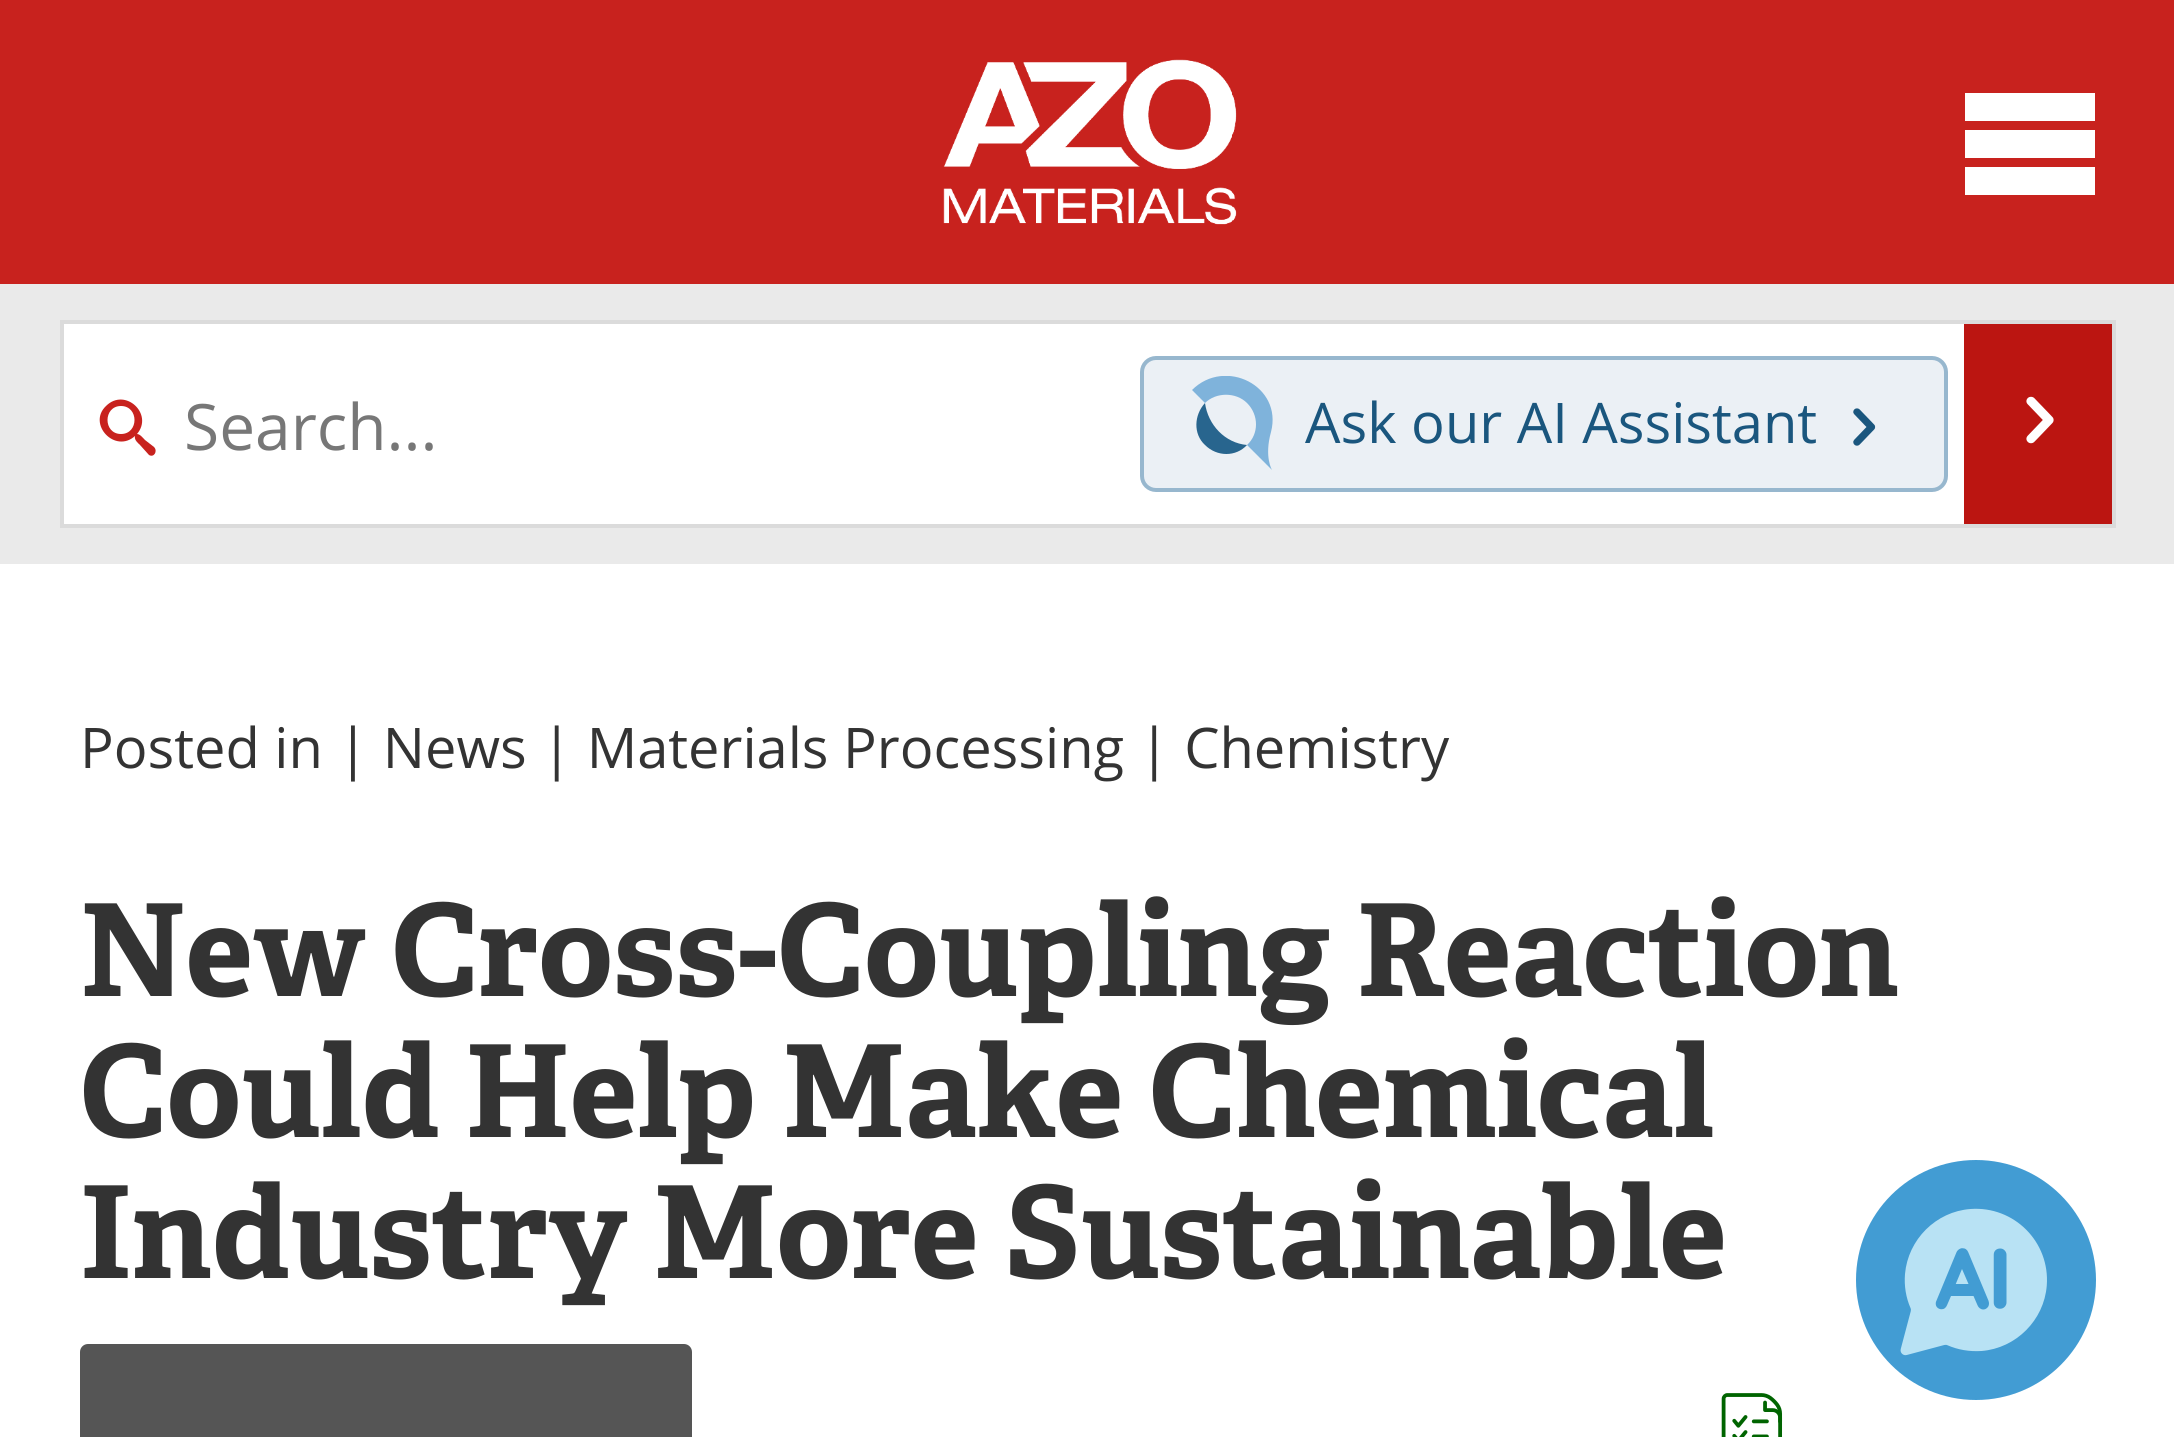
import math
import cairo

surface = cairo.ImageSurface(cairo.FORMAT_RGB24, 2174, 1437)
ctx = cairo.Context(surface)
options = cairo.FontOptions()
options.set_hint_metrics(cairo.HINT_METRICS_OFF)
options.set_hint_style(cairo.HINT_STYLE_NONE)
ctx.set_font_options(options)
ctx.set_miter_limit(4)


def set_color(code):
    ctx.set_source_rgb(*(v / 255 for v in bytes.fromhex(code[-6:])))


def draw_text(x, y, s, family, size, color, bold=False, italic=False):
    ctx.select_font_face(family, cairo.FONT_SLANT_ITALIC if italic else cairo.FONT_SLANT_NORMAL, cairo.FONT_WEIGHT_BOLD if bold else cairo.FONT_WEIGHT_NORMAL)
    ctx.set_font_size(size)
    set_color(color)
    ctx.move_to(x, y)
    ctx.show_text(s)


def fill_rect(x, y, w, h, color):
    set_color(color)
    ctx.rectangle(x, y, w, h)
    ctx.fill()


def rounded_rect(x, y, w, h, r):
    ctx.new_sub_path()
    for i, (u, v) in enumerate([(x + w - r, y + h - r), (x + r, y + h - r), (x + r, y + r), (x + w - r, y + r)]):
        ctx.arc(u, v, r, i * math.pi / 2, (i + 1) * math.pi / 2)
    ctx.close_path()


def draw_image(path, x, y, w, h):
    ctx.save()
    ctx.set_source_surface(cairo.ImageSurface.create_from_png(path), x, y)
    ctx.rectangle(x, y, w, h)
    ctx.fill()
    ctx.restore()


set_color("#ffffff")
ctx.paint()
fill_rect(0, 284, 2174, 280, "#eaeaea")
fill_rect(0, 0, 2174, 284, "#c8221e")
draw_image("assets/img1.png", 943, 59, 294, 166)
set_color("#ffffff")
ctx.new_path()
ctx.move_to(1965, 93)
ctx.line_to(2095, 93)
ctx.line_to(2095, 121)
ctx.line_to(1965, 121)
ctx.close_path()
ctx.move_to(1965, 130)
ctx.line_to(2095, 130)
ctx.line_to(2095, 158)
ctx.line_to(1965, 158)
ctx.close_path()
ctx.move_to(1965, 167)
ctx.line_to(2095, 167)
ctx.line_to(2095, 195)
ctx.line_to(1965, 195)
ctx.close_path()
ctx.fill()
fill_rect(64, 324, 1900, 200, "#ffffff")
ctx.rectangle(62, 322, 2052, 204)
set_color("#dbdbdb")
ctx.set_line_width(4)
ctx.stroke()
set_color("#c8221e")
ctx.new_path()
ctx.move_to(154, 447)
ctx.line_to(145, 440)
ctx.curve_to(143, 438, 140, 434, 137, 434)
ctx.curve_to(154, 414, 125, 387, 106, 406)
ctx.curve_to(87, 424, 115, 454, 135, 436)
ctx.curve_to(134, 440, 138, 443, 140, 445)
ctx.line_to(149, 455)
ctx.curve_to(154, 458, 158, 451, 154, 447)
ctx.close_path()
ctx.move_to(121, 434)
ctx.curve_to(103, 434, 103, 406, 121, 406)
ctx.curve_to(139, 406, 139, 434, 121, 434)
ctx.close_path()
ctx.fill()
draw_text(184, 450, "Search...", "Open Sans", 64, "#777777")
set_color("#ebf0f5")
rounded_rect(1142, 358, 804, 132, 14)
ctx.fill_preserve()
set_color("#97b7ce")
ctx.stroke()
set_color("#28658e")
ctx.new_path()
ctx.move_to(1205, 403)
ctx.curve_to(1194, 415, 1193, 434, 1205, 445)
ctx.curve_to(1217, 457, 1236, 457, 1247, 445)
ctx.curve_to(1225, 443, 1208, 425, 1205, 403)
ctx.close_path()
ctx.fill()
ctx.save()
ctx.rectangle(1192, 376, 112, 96)
ctx.clip()
set_color("#7fb3db")
ctx.new_path()
ctx.move_to(1271, 432)
ctx.curve_to(1283, 386, 1225, 357, 1192, 390)
ctx.line_to(1205, 403)
ctx.curve_to(1216, 392, 1236, 392, 1247, 403)
ctx.curve_to(1259, 415, 1259, 434, 1247, 445)
ctx.line_to(1272, 470)
ctx.curve_to(1272, 470, 1264, 457, 1271, 432)
ctx.close_path()
ctx.fill()
ctx.restore()
draw_text(1305, 443, "Ask our AI Assistant", "Open Sans", 56, "#1a567e")
draw_image("assets/img2.png", 1853, 408, 23, 38)
fill_rect(1964, 324, 148, 200, "#bb1511")
draw_image("assets/img3.png", 2026, 396, 28, 48)
draw_text(80, 768, "Posted in | News | Materials Processing | Chemistry", "Open Sans", 56, "#333333")
draw_text(80, 996, "New Cross-Coupling Reaction", "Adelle", 128, "#333333", bold=True)
draw_text(80, 1137, "Could Help Make Chemical", "Adelle", 128, "#333333", bold=True)
draw_text(80, 1278, "Industry More Sustainable", "Adelle", 128, "#333333", bold=True)
set_color("#555555")
rounded_rect(80, 1344, 612, 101, 8)
ctx.fill()
draw_image("assets/img4.png", 1721, 1393, 62, 44)
draw_image("assets/img5.png", 1856, 1160, 240, 240)
surface.write_to_png("output.png")
